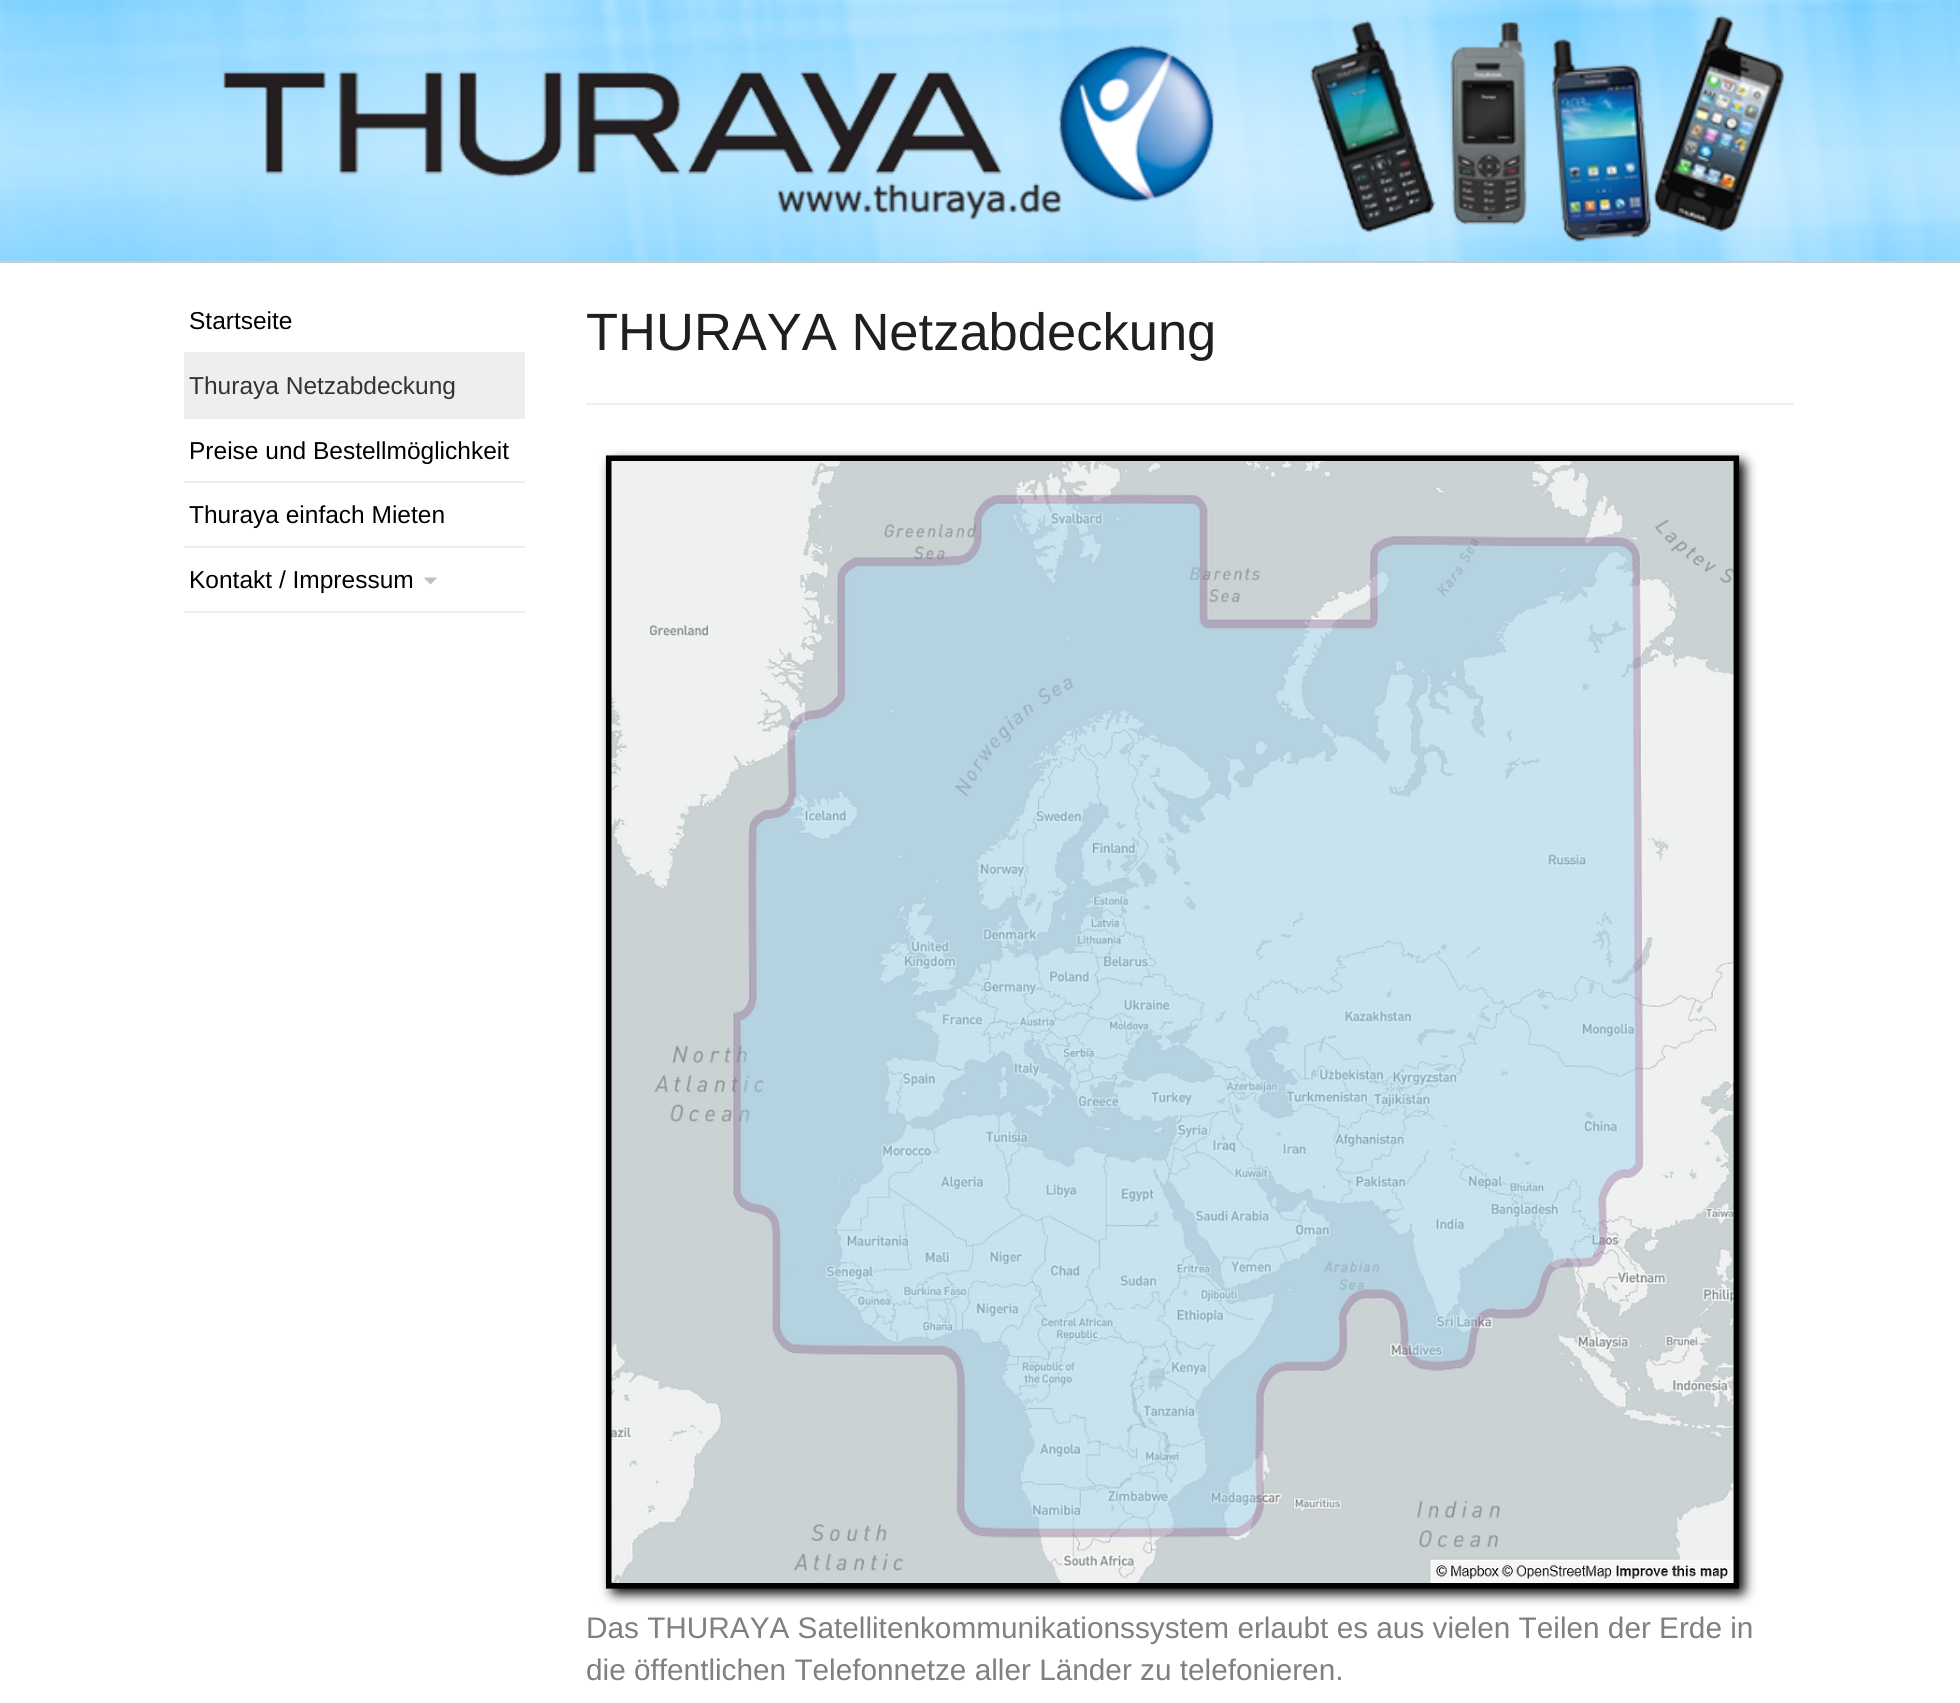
import math
import cairo

surface = cairo.ImageSurface(cairo.FORMAT_RGB24, 1960, 1703)
ctx = cairo.Context(surface)
options = cairo.FontOptions()
options.set_hint_metrics(cairo.HINT_METRICS_OFF)
options.set_hint_style(cairo.HINT_STYLE_NONE)
ctx.set_font_options(options)
ctx.set_miter_limit(4)


def set_color(code):
    ctx.set_source_rgb(*(v / 255 for v in bytes.fromhex(code[-6:])))


def draw_text(x, y, s, family, size, color, bold=False, italic=False):
    ctx.select_font_face(family, cairo.FONT_SLANT_ITALIC if italic else cairo.FONT_SLANT_NORMAL, cairo.FONT_WEIGHT_BOLD if bold else cairo.FONT_WEIGHT_NORMAL)
    ctx.set_font_size(size)
    set_color(color)
    ctx.move_to(x, y)
    ctx.show_text(s)


def fill_rect(x, y, w, h, color):
    set_color(color)
    ctx.rectangle(x, y, w, h)
    ctx.fill()


def draw_image(path, x, y, w, h):
    ctx.save()
    ctx.set_source_surface(cairo.ImageSurface.create_from_png(path), x, y)
    ctx.rectangle(x, y, w, h)
    ctx.fill()
    ctx.restore()


set_color("#ffffff")
ctx.paint()
draw_image("assets/img1.png", 0, 0, 1960, 261)
fill_rect(0, 261, 1960, 2, "#cccccc")
draw_image("assets/img2.png", 222, 15, 1563, 227)
fill_rect(184, 352, 341, 2, "#eeeeee")
draw_text(189, 329, "Startseite", "Liberation Sans", 24.5, "#000000")
fill_rect(184, 354, 341, 65, "#eeeeee")
draw_text(189, 394, "Thuraya Netzabdeckung", "Liberation Sans", 24.5, "#333333")
fill_rect(184, 481, 341, 2, "#eeeeee")
draw_text(189, 459, "Preise und Bestellmöglichkeit", "Liberation Sans", 24.5, "#000000")
fill_rect(184, 546, 341, 2, "#eeeeee")
draw_text(189, 523, "Thuraya einfach Mieten", "Liberation Sans", 24.5, "#000000")
fill_rect(184, 611, 341, 2, "#eeeeee")
draw_text(189, 588, "Kontakt / Impressum", "Liberation Sans", 24.5, "#000000")
set_color("#bfbfbf")
ctx.new_path()
ctx.move_to(423.5, 577.5)
ctx.line_to(437.5, 577.5)
ctx.line_to(430.5, 584.5)
ctx.close_path()
ctx.fill()
fill_rect(586, 403, 1208, 2, "#eeeeee")
draw_text(586, 350, "THURAYA Netzabdeckung", "Liberation Sans", 52.5, "#1f1f1f")
draw_image("assets/img3.png", 599, 449, 1158, 1157)
draw_text(586, 1638, "Das THURAYA Satellitenkommunikationssystem erlaubt es aus vielen Teilen der Erde in", "Liberation Sans", 29.75, "#808080")
draw_text(586, 1680, "die öffentlichen Telefonnetze aller Länder zu telefonieren.", "Liberation Sans", 29.75, "#808080")
surface.write_to_png("output.png")
